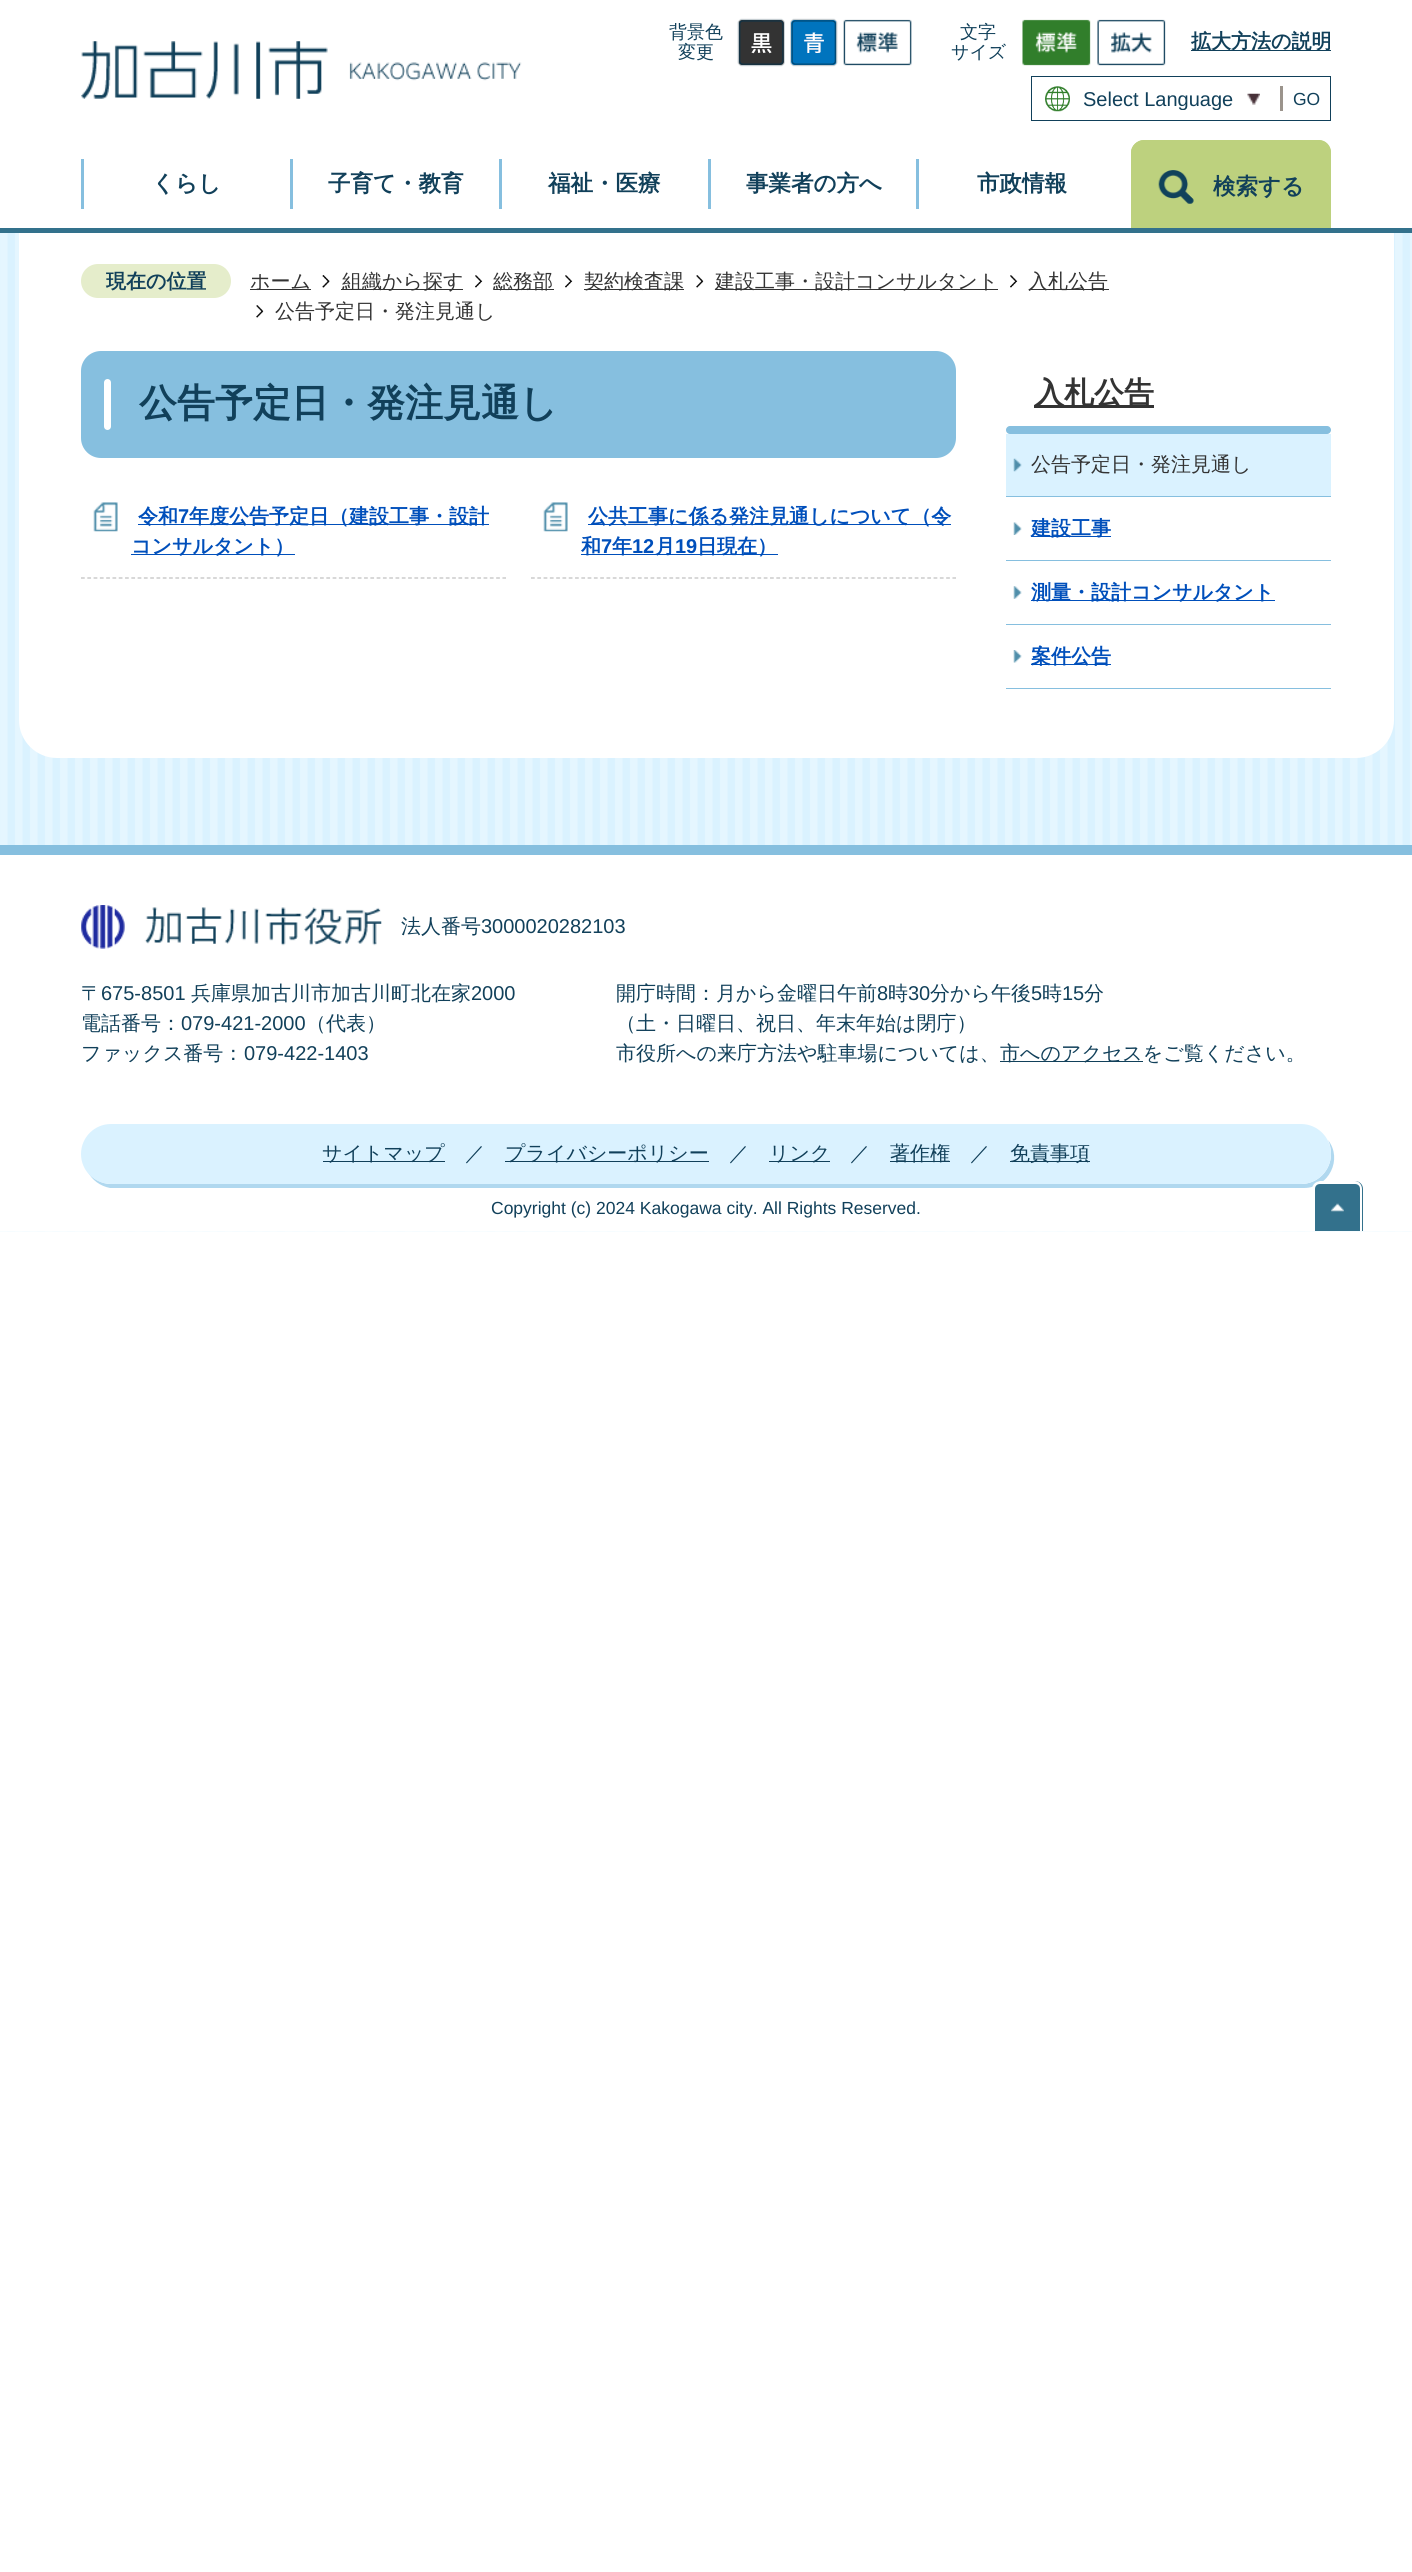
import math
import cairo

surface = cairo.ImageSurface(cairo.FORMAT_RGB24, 1412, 2572)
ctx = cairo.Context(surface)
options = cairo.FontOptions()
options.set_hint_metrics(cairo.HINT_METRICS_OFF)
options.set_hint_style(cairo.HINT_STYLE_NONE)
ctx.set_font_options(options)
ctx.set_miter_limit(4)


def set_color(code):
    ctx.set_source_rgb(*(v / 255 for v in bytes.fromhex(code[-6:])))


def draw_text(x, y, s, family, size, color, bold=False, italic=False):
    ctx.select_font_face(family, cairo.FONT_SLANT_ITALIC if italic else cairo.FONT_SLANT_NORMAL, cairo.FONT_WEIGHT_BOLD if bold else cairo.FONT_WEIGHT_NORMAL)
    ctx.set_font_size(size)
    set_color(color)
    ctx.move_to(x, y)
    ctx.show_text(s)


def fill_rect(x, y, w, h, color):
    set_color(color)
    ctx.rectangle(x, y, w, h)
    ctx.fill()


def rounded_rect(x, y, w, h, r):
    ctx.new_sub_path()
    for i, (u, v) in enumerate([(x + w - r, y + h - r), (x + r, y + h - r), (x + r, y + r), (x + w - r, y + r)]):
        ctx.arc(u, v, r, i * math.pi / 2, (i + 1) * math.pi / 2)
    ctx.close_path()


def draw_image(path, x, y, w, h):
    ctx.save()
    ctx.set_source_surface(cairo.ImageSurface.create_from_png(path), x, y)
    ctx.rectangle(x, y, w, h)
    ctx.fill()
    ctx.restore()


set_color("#ffffff")
ctx.paint()
draw_image("assets/img1.png", 0, 233, 1412, 999)
draw_image("assets/img2.png", 81, 41, 441, 58)
draw_text(669, 38, "背景色", "WenQuanYi Zen Hei Medium", 18, "#11405a")
draw_text(678, 58, "変更", "WenQuanYi Zen Hei Medium", 18, "#11405a")
draw_image("assets/img3.png", 737, 18, 48, 49)
draw_image("assets/img4.png", 790, 18, 48, 49)
draw_image("assets/img5.png", 843, 19, 69, 47)
draw_text(960, 38, "文字", "WenQuanYi Zen Hei Medium", 18, "#11405a")
draw_text(951, 58, "サイズ", "WenQuanYi Zen Hei Medium", 18, "#11405a")
draw_image("assets/img6.png", 1022, 19, 69, 47)
draw_image("assets/img7.png", 1097, 19, 69, 47)
fill_rect(1191, 50, 140, 1, "#11405a")
draw_text(1191, 48, "拡大方法の説明", "WenQuanYi Zen Hei", 20, "#11405a", bold=True)
ctx.rectangle(1031.5, 76.5, 299, 44)
ctx.set_line_width(1)
ctx.stroke()
draw_image("assets/img8.png", 1045, 86, 215, 26)
ctx.save()
ctx.rectangle(1083, 89, 157, 21)
ctx.clip()
draw_text(1083, 106, "Select Language", "Liberation Sans", 20, "#11405a")
ctx.restore()
fill_rect(1280, 86, 3, 25, "#9b948c")
draw_text(1293, 105, "GO", "Liberation Sans", 17.5, "#11405a")
fill_rect(0, 228, 1412, 5, "#33718c")
fill_rect(81, 159, 3, 50, "#86bfdf")
draw_text(152, 191, "くらし", "WenQuanYi Zen Hei", 22.5, "#11405a", bold=True)
fill_rect(290, 159, 3, 50, "#86bfdf")
draw_text(328, 191, "子育て・教育", "WenQuanYi Zen Hei", 22.5, "#11405a", bold=True)
fill_rect(499, 159, 3, 50, "#86bfdf")
draw_text(548, 191, "福祉・医療", "WenQuanYi Zen Hei", 22.5, "#11405a", bold=True)
fill_rect(708, 159, 3, 50, "#86bfdf")
draw_text(746, 191, "事業者の方へ", "WenQuanYi Zen Hei", 22.5, "#11405a", bold=True)
fill_rect(916, 159, 3, 50, "#86bfdf")
draw_text(977, 191, "市政情報", "WenQuanYi Zen Hei", 22.5, "#11405a", bold=True)
set_color("#bdd17e")
ctx.new_path()
ctx.move_to(1144, 140)
ctx.line_to(1318, 140)
ctx.curve_to(1325, 140, 1331, 146, 1331, 153)
ctx.line_to(1331, 228)
ctx.line_to(1131, 228)
ctx.line_to(1131, 153)
ctx.curve_to(1131, 146, 1137, 140, 1144, 140)
ctx.close_path()
ctx.fill()
ctx.set_fill_rule(cairo.FILL_RULE_EVEN_ODD)
ctx.new_path()
ctx.move_to(1144, 140)
ctx.line_to(1319, 140)
ctx.curve_to(1326, 140, 1331, 146, 1331, 152)
ctx.line_to(1331, 228)
ctx.line_to(1131, 228)
ctx.line_to(1131, 152)
ctx.curve_to(1131, 146, 1137, 140, 1144, 140)
ctx.close_path()
ctx.move_to(1144, 146)
ctx.line_to(1319, 146)
ctx.curve_to(1322, 146, 1325, 149, 1325, 152)
ctx.line_to(1325, 228)
ctx.line_to(1138, 228)
ctx.line_to(1138, 152)
ctx.curve_to(1138, 149, 1140, 146, 1144, 146)
ctx.close_path()
ctx.fill()
draw_image("assets/img9.png", 1158, 170, 36, 34)
draw_text(1213, 194, "検索する", "WenQuanYi Zen Hei", 22.5, "#11405a", bold=True)
fill_rect(19, 233, 1375, 118, "#ffffff")
set_color("#e5edcb")
rounded_rect(81, 264, 150, 34, 17)
ctx.fill()
draw_text(106, 288, "現在の位置", "WenQuanYi Zen Hei", 20, "#11405a", bold=True)
fill_rect(250, 289, 61, 1, "#333333")
draw_text(250, 288, "ホーム", "WenQuanYi Zen Hei Medium", 20, "#333333")
draw_image("assets/img10.png", 322, 275, 8, 13)
fill_rect(341, 289, 122, 1, "#333333")
draw_text(342, 288, "組織から探す", "WenQuanYi Zen Hei Medium", 20, "#333333")
draw_image("assets/img11.png", 475, 275, 8, 13)
fill_rect(494, 289, 60, 1, "#333333")
draw_text(493, 288, "総務部", "WenQuanYi Zen Hei Medium", 20, "#333333")
draw_image("assets/img11.png", 565, 275, 8, 13)
fill_rect(584, 289, 100, 1, "#333333")
draw_text(584, 288, "契約検査課", "WenQuanYi Zen Hei Medium", 20, "#333333")
draw_image("assets/img12.png", 696, 275, 8, 13)
fill_rect(715, 289, 283, 1, "#333333")
draw_text(715, 288, "建設工事・設計コンサルタント", "WenQuanYi Zen Hei Medium", 20, "#333333")
draw_image("assets/img11.png", 1010, 275, 8, 13)
fill_rect(1029, 289, 80, 1, "#333333")
draw_text(1028, 288, "入札公告", "WenQuanYi Zen Hei Medium", 20, "#333333")
draw_image("assets/img12.png", 256, 305, 8, 13)
draw_text(275, 318, "公告予定日・発注見通し", "WenQuanYi Zen Hei Medium", 20, "#333333")
set_color("#ffffff")
ctx.new_path()
ctx.move_to(19, 351)
ctx.line_to(1394, 351)
ctx.line_to(1394, 720)
ctx.curve_to(1394, 741, 1377, 758, 1356, 758)
ctx.line_to(57, 758)
ctx.curve_to(36, 758, 19, 741, 19, 720)
ctx.close_path()
ctx.fill()
set_color("#86bfdf")
rounded_rect(81, 351, 875, 107, 20)
ctx.fill()
set_color("#ffffff")
rounded_rect(104, 379, 7, 51, 3.5)
ctx.fill()
draw_text(139, 416, "公告予定日・発注見通し", "WenQuanYi Zen Hei", 38, "#11405a", bold=True)
draw_image("assets/img13.png", 93, 502, 25, 30)
ctx.new_path()
ctx.move_to(81, 578)
ctx.line_to(506, 578)
set_color("#bfbfbf")
ctx.set_line_width(1.2)
ctx.set_dash([3.75, 2.54])
ctx.stroke()
fill_rect(138, 524, 351, 1, "#004fbb")
draw_text(138, 523, "令和", "WenQuanYi Zen Hei", 20, "#004fbb", bold=True)
draw_text(178, 523, "7", "Liberation Sans", 20, "#004fbb", bold=True)
draw_text(189, 523, "年度公告予定日（建設工事・設計", "WenQuanYi Zen Hei", 20, "#004fbb", bold=True)
fill_rect(131, 554, 164, 1, "#004fbb")
draw_text(131, 553, "コンサルタント）", "WenQuanYi Zen Hei", 20, "#004fbb", bold=True)
draw_image("assets/img14.png", 543, 502, 25, 30)
ctx.new_path()
ctx.move_to(531, 578)
ctx.line_to(956, 578)
set_color("#bfbfbf")
ctx.stroke()
fill_rect(588, 524, 363, 1, "#004fbb")
draw_text(588, 523, "公共工事に係る発注見通しについて（令", "WenQuanYi Zen Hei", 20, "#004fbb", bold=True)
fill_rect(581, 554, 197, 1, "#004fbb")
draw_text(581, 553, "和", "WenQuanYi Zen Hei", 20, "#004fbb", bold=True)
draw_text(601, 553, "7", "Liberation Sans", 20, "#004fbb", bold=True)
draw_text(612, 553, "年", "WenQuanYi Zen Hei", 20, "#004fbb", bold=True)
draw_text(632, 553, "12", "Liberation Sans", 20, "#004fbb", bold=True)
draw_text(655, 553, "月", "WenQuanYi Zen Hei", 20, "#004fbb", bold=True)
draw_text(675, 553, "19", "Liberation Sans", 20, "#004fbb", bold=True)
draw_text(697, 553, "日現在）", "WenQuanYi Zen Hei", 20, "#004fbb", bold=True)
fill_rect(1034, 405, 120, 3, "#333333")
draw_text(1034, 403, "入札公告", "WenQuanYi Zen Hei", 30, "#333333", bold=True)
set_color("#86bfdf")
rounded_rect(1006, 426, 325, 8, 4)
ctx.fill()
fill_rect(1006, 496, 325, 1, "#86bfdf")
fill_rect(1006, 434, 325, 62, "#daf2ff")
draw_image("assets/img15.png", 1013, 458, 9, 14)
draw_text(1031, 471, "公告予定日・発注見通し", "WenQuanYi Zen Hei Medium", 20, "#333333")
fill_rect(1006, 560, 325, 1, "#86bfdf")
draw_image("assets/img16.png", 1013, 522, 9, 13)
fill_rect(1031, 536, 80, 1, "#004fbb")
draw_text(1031, 535, "建設工事", "WenQuanYi Zen Hei", 20, "#004fbb", bold=True)
fill_rect(1006, 624, 325, 1, "#86bfdf")
draw_image("assets/img17.png", 1013, 586, 9, 13)
fill_rect(1031, 600, 244, 1, "#004fbb")
draw_text(1031, 599, "測量・設計コンサルタント", "WenQuanYi Zen Hei", 20, "#004fbb", bold=True)
fill_rect(1006, 688, 325, 1, "#86bfdf")
draw_image("assets/img18.png", 1013, 650, 9, 13)
fill_rect(1031, 664, 80, 1, "#004fbb")
draw_text(1031, 663, "案件公告", "WenQuanYi Zen Hei", 20, "#004fbb", bold=True)
fill_rect(0, 855, 1412, 376, "#ffffff")
fill_rect(0, 845, 1412, 10, "#86bfdf")
draw_image("assets/img19.png", 81, 905, 301, 44)
draw_text(401, 933, "法人番号", "WenQuanYi Zen Hei Medium", 20, "#11405a")
draw_text(481, 933, "3000020282103", "Liberation Sans", 20, "#11405a")
draw_text(81, 1000, "〒", "WenQuanYi Zen Hei Medium", 20, "#11405a")
draw_text(101, 1000, "675-8501", "Liberation Sans", 20, "#11405a")
draw_text(191, 1000, "兵庫県加古川市加古川町北在家", "WenQuanYi Zen Hei Medium", 20, "#11405a")
draw_text(471, 1000, "2000", "Liberation Sans", 20, "#11405a")
draw_text(81, 1030, "電話番号：", "WenQuanYi Zen Hei Medium", 20, "#11405a")
draw_text(181, 1030, "079-421-2000", "Liberation Sans", 20, "#11405a")
draw_text(306, 1030, "（代表）", "WenQuanYi Zen Hei Medium", 20, "#11405a")
draw_text(81, 1060, "ファックス番号：", "WenQuanYi Zen Hei Medium", 20, "#11405a")
draw_text(244, 1060, "079-422-1403", "Liberation Sans", 20, "#11405a")
draw_text(616, 1000, "開庁時間：月から金曜日午前", "WenQuanYi Zen Hei Medium", 20, "#11405a")
draw_text(877, 1000, "8", "Liberation Sans", 20, "#11405a")
draw_text(888, 1000, "時", "WenQuanYi Zen Hei Medium", 20, "#11405a")
draw_text(908, 1000, "30", "Liberation Sans", 20, "#11405a")
draw_text(930, 1000, "分から午後", "WenQuanYi Zen Hei Medium", 20, "#11405a")
draw_text(1031, 1000, "5", "Liberation Sans", 20, "#11405a")
draw_text(1042, 1000, "時", "WenQuanYi Zen Hei Medium", 20, "#11405a")
draw_text(1062, 1000, "15", "Liberation Sans", 20, "#11405a")
draw_text(1084, 1000, "分", "WenQuanYi Zen Hei Medium", 20, "#11405a")
draw_text(616, 1030, "（土・日曜日、祝日、年末年始は閉庁）", "WenQuanYi Zen Hei Medium", 20, "#11405a")
draw_text(616, 1060, "市役所への来庁方法や駐車場については、", "WenQuanYi Zen Hei Medium", 20, "#11405a")
fill_rect(1000, 1061, 143, 1, "#11405a")
draw_text(1000, 1060, "市へのアクセスをご覧ください。", "WenQuanYi Zen Hei Medium", 20, "#11405a")
set_color("#b0d8ef")
ctx.set_fill_rule(cairo.FILL_RULE_WINDING)
ctx.new_path()
ctx.move_to(88, 1172)
ctx.curve_to(92, 1180, 100, 1186, 110, 1188)
ctx.line_to(1304, 1188)
ctx.curve_to(1329, 1188, 1343, 1159, 1328, 1140)
ctx.curve_to(1330, 1144, 1331, 1149, 1331, 1154)
ctx.curve_to(1331, 1170, 1318, 1184, 1301, 1184)
ctx.line_to(111, 1184)
ctx.curve_to(102, 1184, 93, 1179, 88, 1172)
ctx.close_path()
ctx.fill()
set_color("#daf2ff")
rounded_rect(81, 1124, 1250, 60, 30)
ctx.fill()
fill_rect(323, 1161, 122, 1, "#11405a")
draw_text(322, 1160, "サイトマップ", "WenQuanYi Zen Hei Medium", 20, "#11405a")
draw_text(465, 1160, "／", "WenQuanYi Zen Hei Medium", 20, "#11405a")
fill_rect(505, 1161, 204, 1, "#11405a")
draw_text(505, 1160, "プライバシーポリシー", "WenQuanYi Zen Hei Medium", 20, "#11405a")
draw_text(729, 1160, "／", "WenQuanYi Zen Hei Medium", 20, "#11405a")
fill_rect(769, 1161, 61, 1, "#11405a")
draw_text(769, 1160, "リンク", "WenQuanYi Zen Hei Medium", 20, "#11405a")
draw_text(850, 1160, "／", "WenQuanYi Zen Hei Medium", 20, "#11405a")
fill_rect(890, 1161, 60, 1, "#11405a")
draw_text(890, 1160, "著作権", "WenQuanYi Zen Hei Medium", 20, "#11405a")
draw_text(970, 1160, "／", "WenQuanYi Zen Hei Medium", 20, "#11405a")
fill_rect(1010, 1161, 80, 1, "#11405a")
draw_text(1010, 1160, "免責事項", "WenQuanYi Zen Hei Medium", 20, "#11405a")
draw_text(491, 1214, "Copyright (c) 2024 Kakogawa city. All Rights Reserved.", "Liberation Sans", 17.5, "#11405a")
set_color("#33718c")
ctx.new_path()
ctx.move_to(1321, 1181)
ctx.line_to(1355, 1181)
ctx.curve_to(1359.5, 1181, 1363, 1184.5, 1363, 1189)
ctx.line_to(1363, 1231)
ctx.line_to(1313, 1231)
ctx.line_to(1313, 1189)
ctx.curve_to(1313, 1184.5, 1316.5, 1181, 1321, 1181)
ctx.close_path()
ctx.fill()
set_color("#ffffff")
ctx.set_fill_rule(cairo.FILL_RULE_EVEN_ODD)
ctx.new_path()
ctx.move_to(1320, 1181)
ctx.line_to(1355, 1181)
ctx.curve_to(1359, 1181, 1362, 1185, 1362, 1189)
ctx.line_to(1362, 1231)
ctx.line_to(1312, 1231)
ctx.line_to(1312, 1189)
ctx.curve_to(1312, 1185, 1316, 1181, 1320, 1181)
ctx.close_path()
ctx.move_to(1320, 1184)
ctx.line_to(1355, 1184)
ctx.curve_to(1358, 1184, 1360, 1186, 1360, 1189)
ctx.line_to(1360, 1231)
ctx.line_to(1315, 1231)
ctx.line_to(1315, 1189)
ctx.curve_to(1315, 1186, 1317, 1184, 1320, 1184)
ctx.close_path()
ctx.fill()
draw_image("assets/img20.png", 1331, 1203, 13, 9)
surface.write_to_png("output.png")
